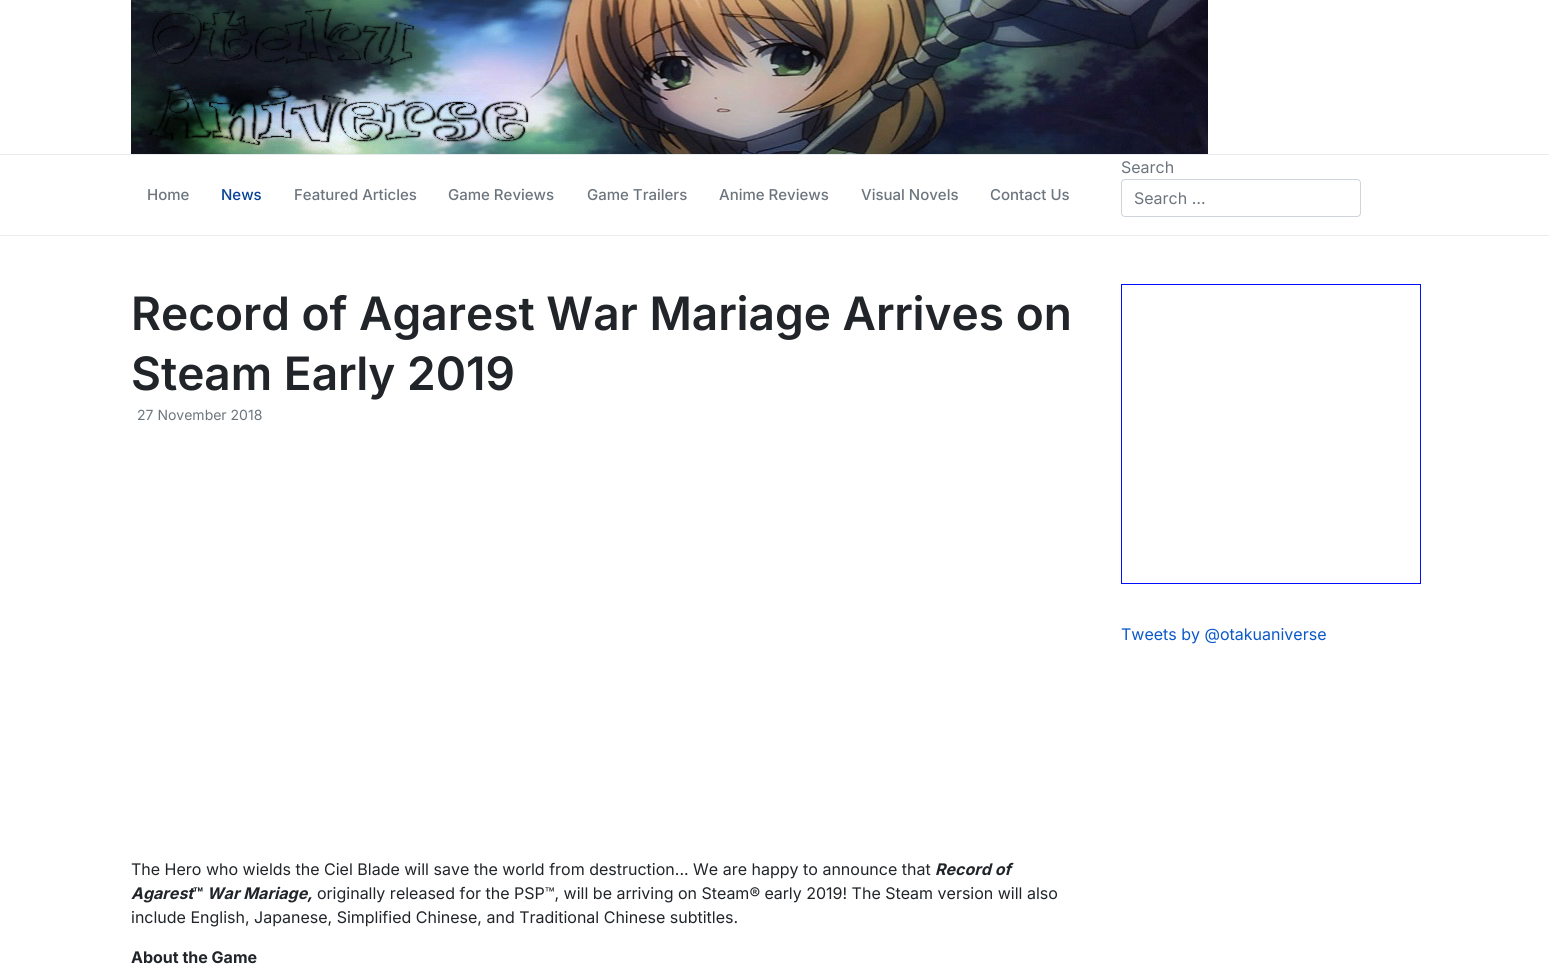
import math
import cairo

surface = cairo.ImageSurface(cairo.FORMAT_RGB24, 1549, 975)
ctx = cairo.Context(surface)
options = cairo.FontOptions()
options.set_hint_metrics(cairo.HINT_METRICS_OFF)
options.set_hint_style(cairo.HINT_STYLE_NONE)
ctx.set_font_options(options)
ctx.set_miter_limit(4)


def set_color(code):
    ctx.set_source_rgb(*(v / 255 for v in bytes.fromhex(code[-6:])))


def draw_text(x, y, s, family, size, color, bold=False, italic=False):
    ctx.select_font_face(family, cairo.FONT_SLANT_ITALIC if italic else cairo.FONT_SLANT_NORMAL, cairo.FONT_WEIGHT_BOLD if bold else cairo.FONT_WEIGHT_NORMAL)
    ctx.set_font_size(size)
    set_color(color)
    ctx.move_to(x, y)
    ctx.show_text(s)


def fill_rect(x, y, w, h, color):
    set_color(color)
    ctx.rectangle(x, y, w, h)
    ctx.fill()


def rounded_rect(x, y, w, h, r):
    ctx.new_sub_path()
    for i, (u, v) in enumerate([(x + w - r, y + h - r), (x + r, y + h - r), (x + r, y + r), (x + w - r, y + r)]):
        ctx.arc(u, v, r, i * math.pi / 2, (i + 1) * math.pi / 2)
    ctx.close_path()


def draw_image(path, x, y, w, h):
    ctx.save()
    ctx.set_source_surface(cairo.ImageSurface.create_from_png(path), x, y)
    ctx.rectangle(x, y, w, h)
    ctx.fill()
    ctx.restore()


set_color("#ffffff")
ctx.paint()
draw_image("assets/img1.png", 131, 0, 1077, 154)
fill_rect(0, 154, 1549, 1, "#e9ecef")
fill_rect(0, 235, 1549, 1, "#e9ecef")
draw_text(147, 200, "Home", "Inter Medium", 15, "#6c757d")
draw_text(221, 200, "News", "Inter Medium", 15, "#084298")
draw_text(294, 200, "Featured Articles", "Inter Medium", 15, "#6c757d")
draw_text(448, 200, "Game Reviews", "Inter Medium", 15, "#6c757d")
draw_text(587, 200, "Game Trailers", "Inter Medium", 15, "#6c757d")
draw_text(719, 200, "Anime Reviews", "Inter Medium", 15, "#6c757d")
draw_text(861, 200, "Visual Novels", "Inter Medium", 15, "#6c757d")
draw_text(990, 200, "Contact Us", "Inter Medium", 15, "#6c757d")
draw_text(1121, 173, "Search", "Inter", 16, "#6c757d")
rounded_rect(1121.5, 179.5, 239, 37, 3.5)
set_color("#ced4da")
ctx.set_line_width(1)
ctx.stroke()
draw_text(1134, 204, "Search …", "Inter", 16, "#6c757d")
draw_text(131, 330, "Record of Agarest War Mariage Arrives on", "Inter SemiBold", 46, "#212529")
draw_text(131, 390, "Steam Early 2019", "Inter SemiBold", 46, "#212529")
draw_text(137, 420, "27 November 2018", "Inter", 14, "#6c757d")
draw_text(131, 875, "The Hero who wields the Ciel Blade will save the world from destruction... We are happy to announce that", "Inter", 16, "#212529")
draw_text(935, 875, "Record of", "Inter", 16, "#212529", bold=True, italic=True)
draw_text(131, 899, "Agarest", "Inter", 16, "#212529", bold=True, italic=True)
draw_text(193, 899, "™", "Inter", 16, "#212529", bold=True)
draw_text(207, 899, "War Mariage,", "Inter", 16, "#212529", bold=True, italic=True)
draw_text(317, 899, "originally released for the PSP™, will be arriving on Steam® early 2019! The Steam version will also", "Inter", 16, "#212529")
draw_text(131, 923, "include English, Japanese, Simplified Chinese, and Traditional Chinese subtitles.", "Inter", 16, "#212529")
draw_text(131, 963, "About the Game", "Inter", 16, "#212529", bold=True)
ctx.rectangle(1121.5, 284.5, 299, 299)
set_color("#000dff")
ctx.stroke()
draw_text(1121, 640, "Tweets by @otakuaniverse", "Inter", 16, "#0a58ca")
surface.write_to_png("output.png")
